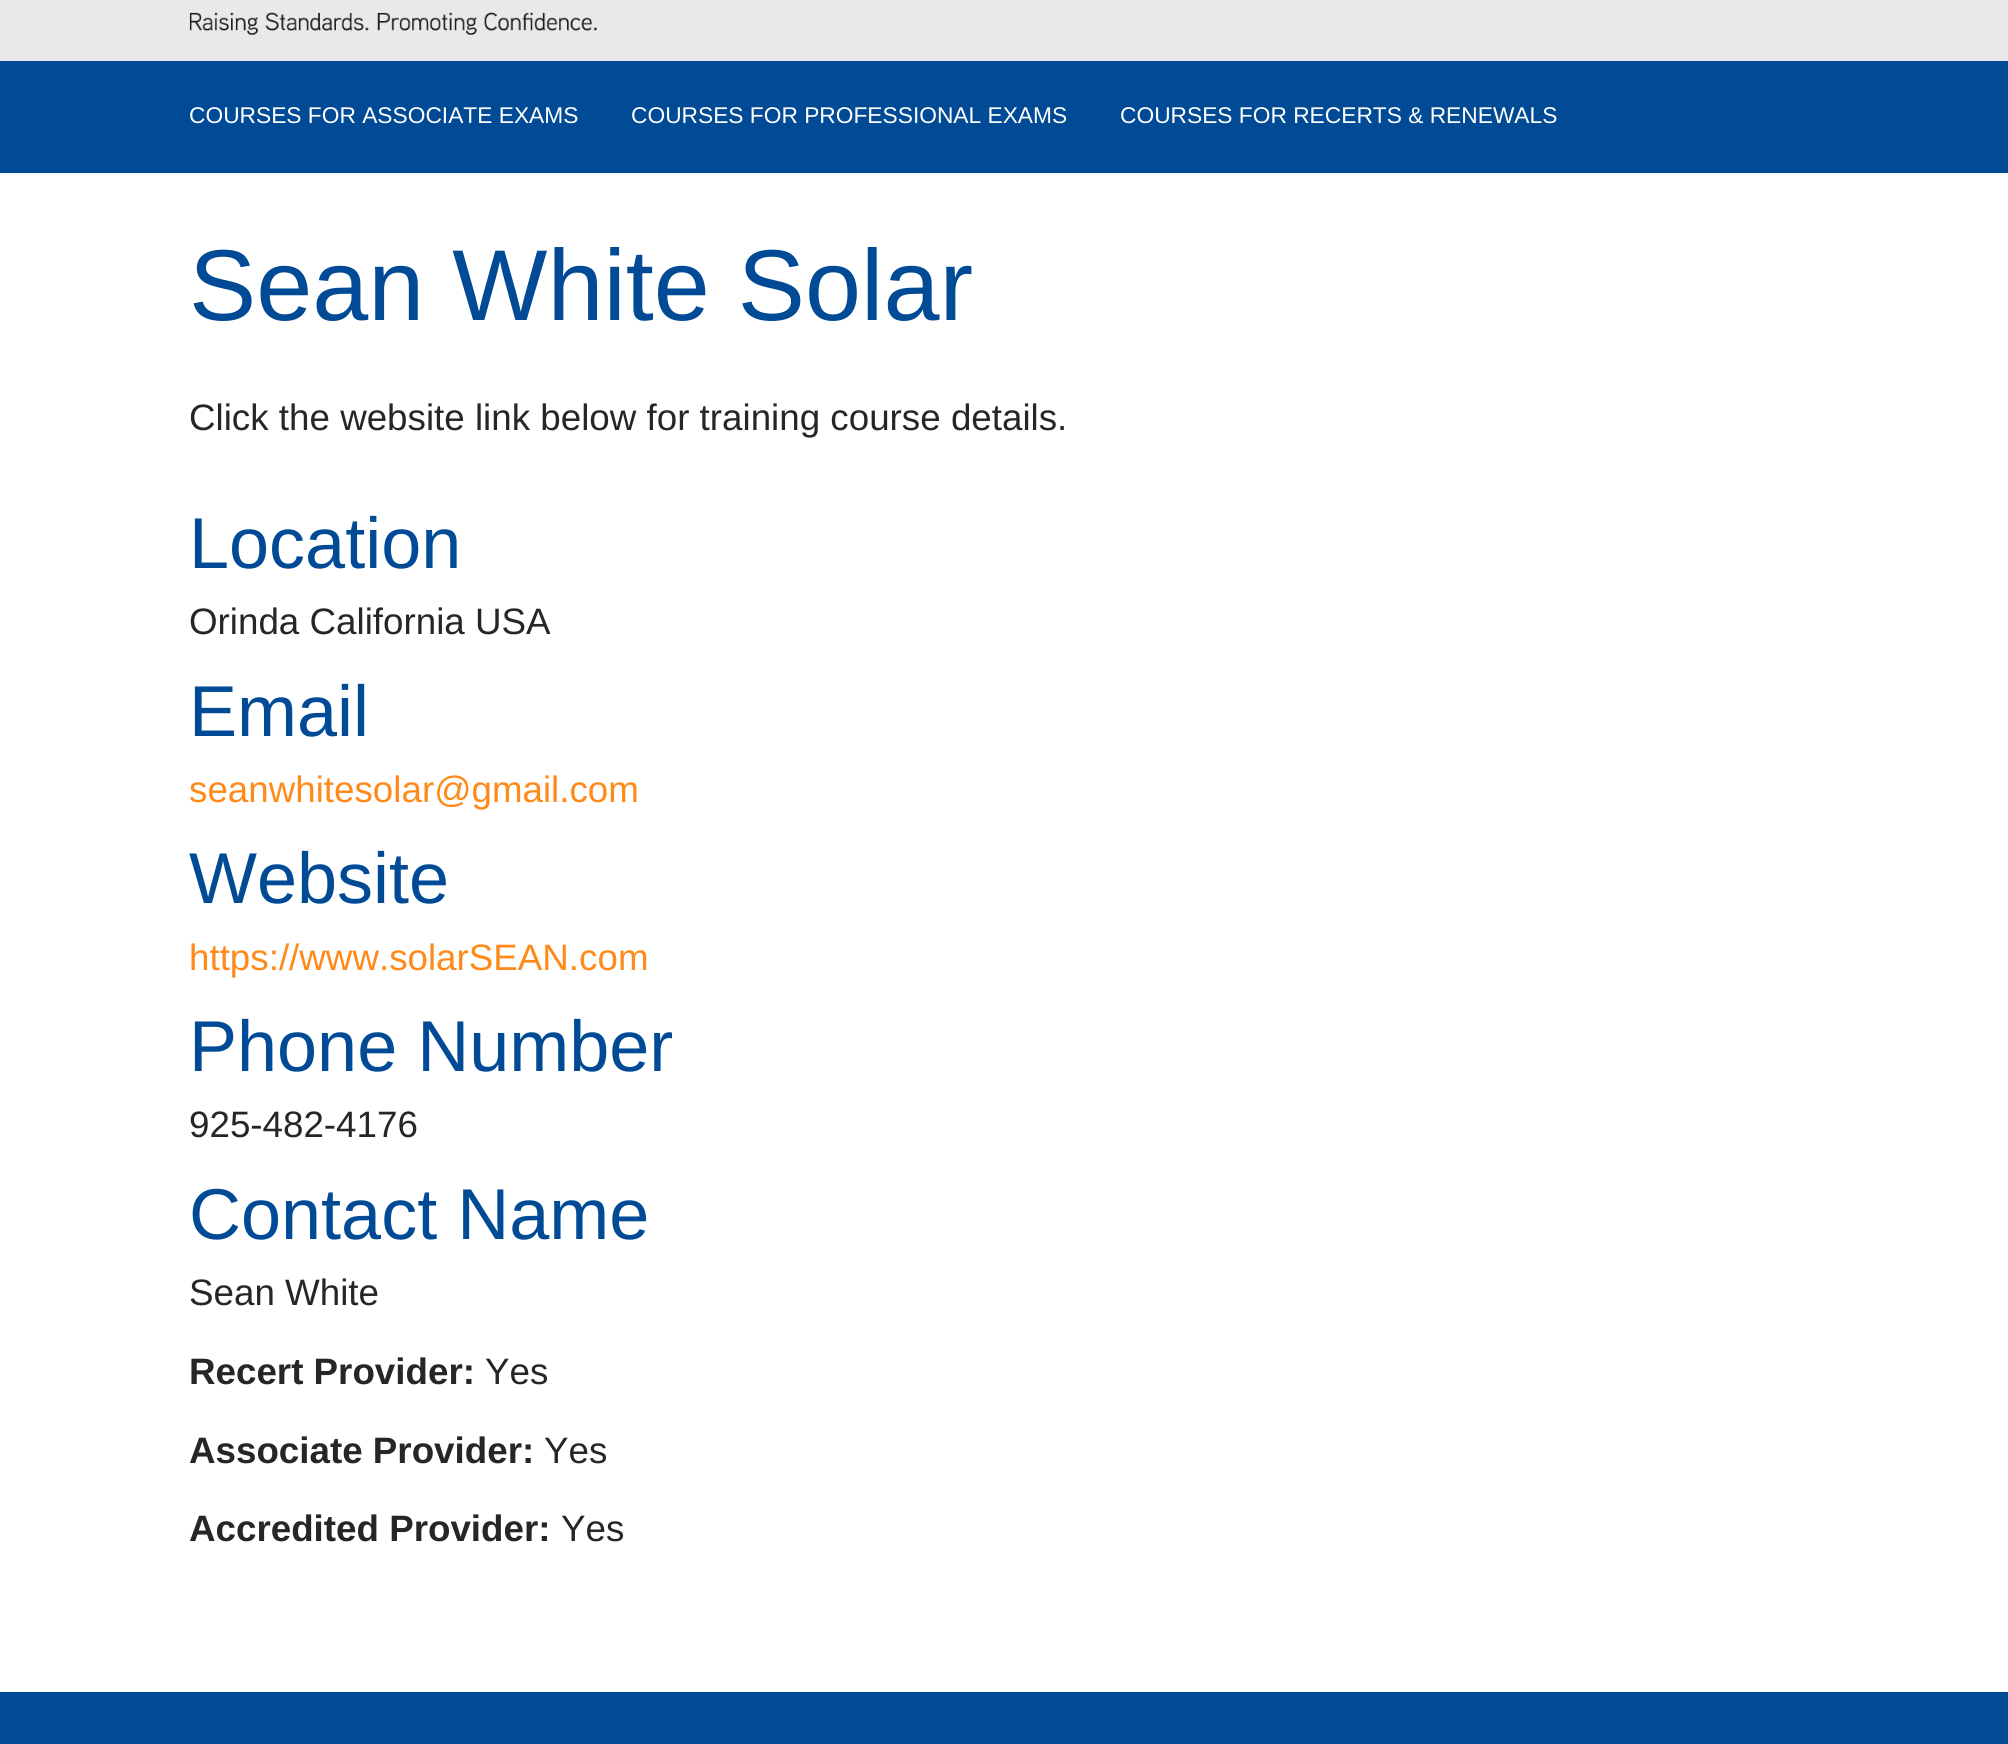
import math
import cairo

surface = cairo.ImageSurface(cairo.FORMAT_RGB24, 2008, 1744)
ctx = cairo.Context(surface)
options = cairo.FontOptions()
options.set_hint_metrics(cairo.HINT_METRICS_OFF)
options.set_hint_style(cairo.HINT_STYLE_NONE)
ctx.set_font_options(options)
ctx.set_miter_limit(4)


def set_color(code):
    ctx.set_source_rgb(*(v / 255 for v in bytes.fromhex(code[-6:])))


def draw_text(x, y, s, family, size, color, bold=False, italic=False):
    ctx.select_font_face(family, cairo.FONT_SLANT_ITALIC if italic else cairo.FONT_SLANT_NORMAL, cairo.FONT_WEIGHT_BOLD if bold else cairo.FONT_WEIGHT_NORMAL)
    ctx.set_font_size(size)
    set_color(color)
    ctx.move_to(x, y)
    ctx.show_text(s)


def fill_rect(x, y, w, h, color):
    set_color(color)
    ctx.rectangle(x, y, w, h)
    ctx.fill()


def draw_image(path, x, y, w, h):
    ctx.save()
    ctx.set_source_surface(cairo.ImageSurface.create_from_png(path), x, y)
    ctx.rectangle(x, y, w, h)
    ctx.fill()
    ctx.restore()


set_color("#ffffff")
ctx.paint()
fill_rect(0, 0, 2008, 61, "#e9e9e9")
draw_image("assets/img1.png", 189, 12, 408, 23)
fill_rect(0, 61, 2008, 112, "#004a96")
draw_text(189, 123, "COURSES FOR ASSOCIATE EXAMS", "Liberation Sans", 22.75, "#ffffff")
draw_text(631, 123, "COURSES FOR PROFESSIONAL EXAMS", "Liberation Sans", 22.75, "#ffffff")
draw_text(1120, 123, "COURSES FOR RECERTS & RENEWALS", "Liberation Sans", 22.75, "#ffffff")
draw_text(189, 320, "Sean White Solar", "Liberation Sans", 100.75, "#004a96")
draw_text(189, 430, "Click the website link below for training course details.", "Liberation Sans", 36.75, "#262626")
draw_text(189, 568, "Location", "Liberation Sans", 72, "#004a96")
draw_text(189, 634, "Orinda California USA", "Liberation Sans", 36.75, "#262626")
draw_text(189, 736, "Email", "Liberation Sans", 72, "#004a96")
draw_text(189, 802, "seanwhitesolar@gmail.com", "Liberation Sans", 36.75, "#ff8a19")
draw_text(189, 903, "Website", "Liberation Sans", 72, "#004a96")
draw_text(189, 970, "https://www.solarSEAN.com", "Liberation Sans", 36.75, "#ff8a19")
draw_text(189, 1071, "Phone Number", "Liberation Sans", 72, "#004a96")
draw_text(189, 1137, "925-482-4176", "Liberation Sans", 36.75, "#262626")
draw_text(189, 1239, "Contact Name", "Liberation Sans", 72, "#004a96")
draw_text(189, 1305, "Sean White", "Liberation Sans", 36.75, "#262626")
draw_text(189, 1384, "Recert Provider:", "Liberation Sans", 36.75, "#262626", bold=True)
draw_text(485, 1384, "Yes", "Liberation Sans", 36.75, "#262626")
draw_text(189, 1463, "Associate Provider:", "Liberation Sans", 36.75, "#262626", bold=True)
draw_text(544, 1463, "Yes", "Liberation Sans", 36.75, "#262626")
draw_text(189, 1541, "Accredited Provider:", "Liberation Sans", 36.75, "#262626", bold=True)
draw_text(561, 1541, "Yes", "Liberation Sans", 36.75, "#262626")
fill_rect(0, 1692, 2008, 52, "#004a96")
surface.write_to_png("output.png")
